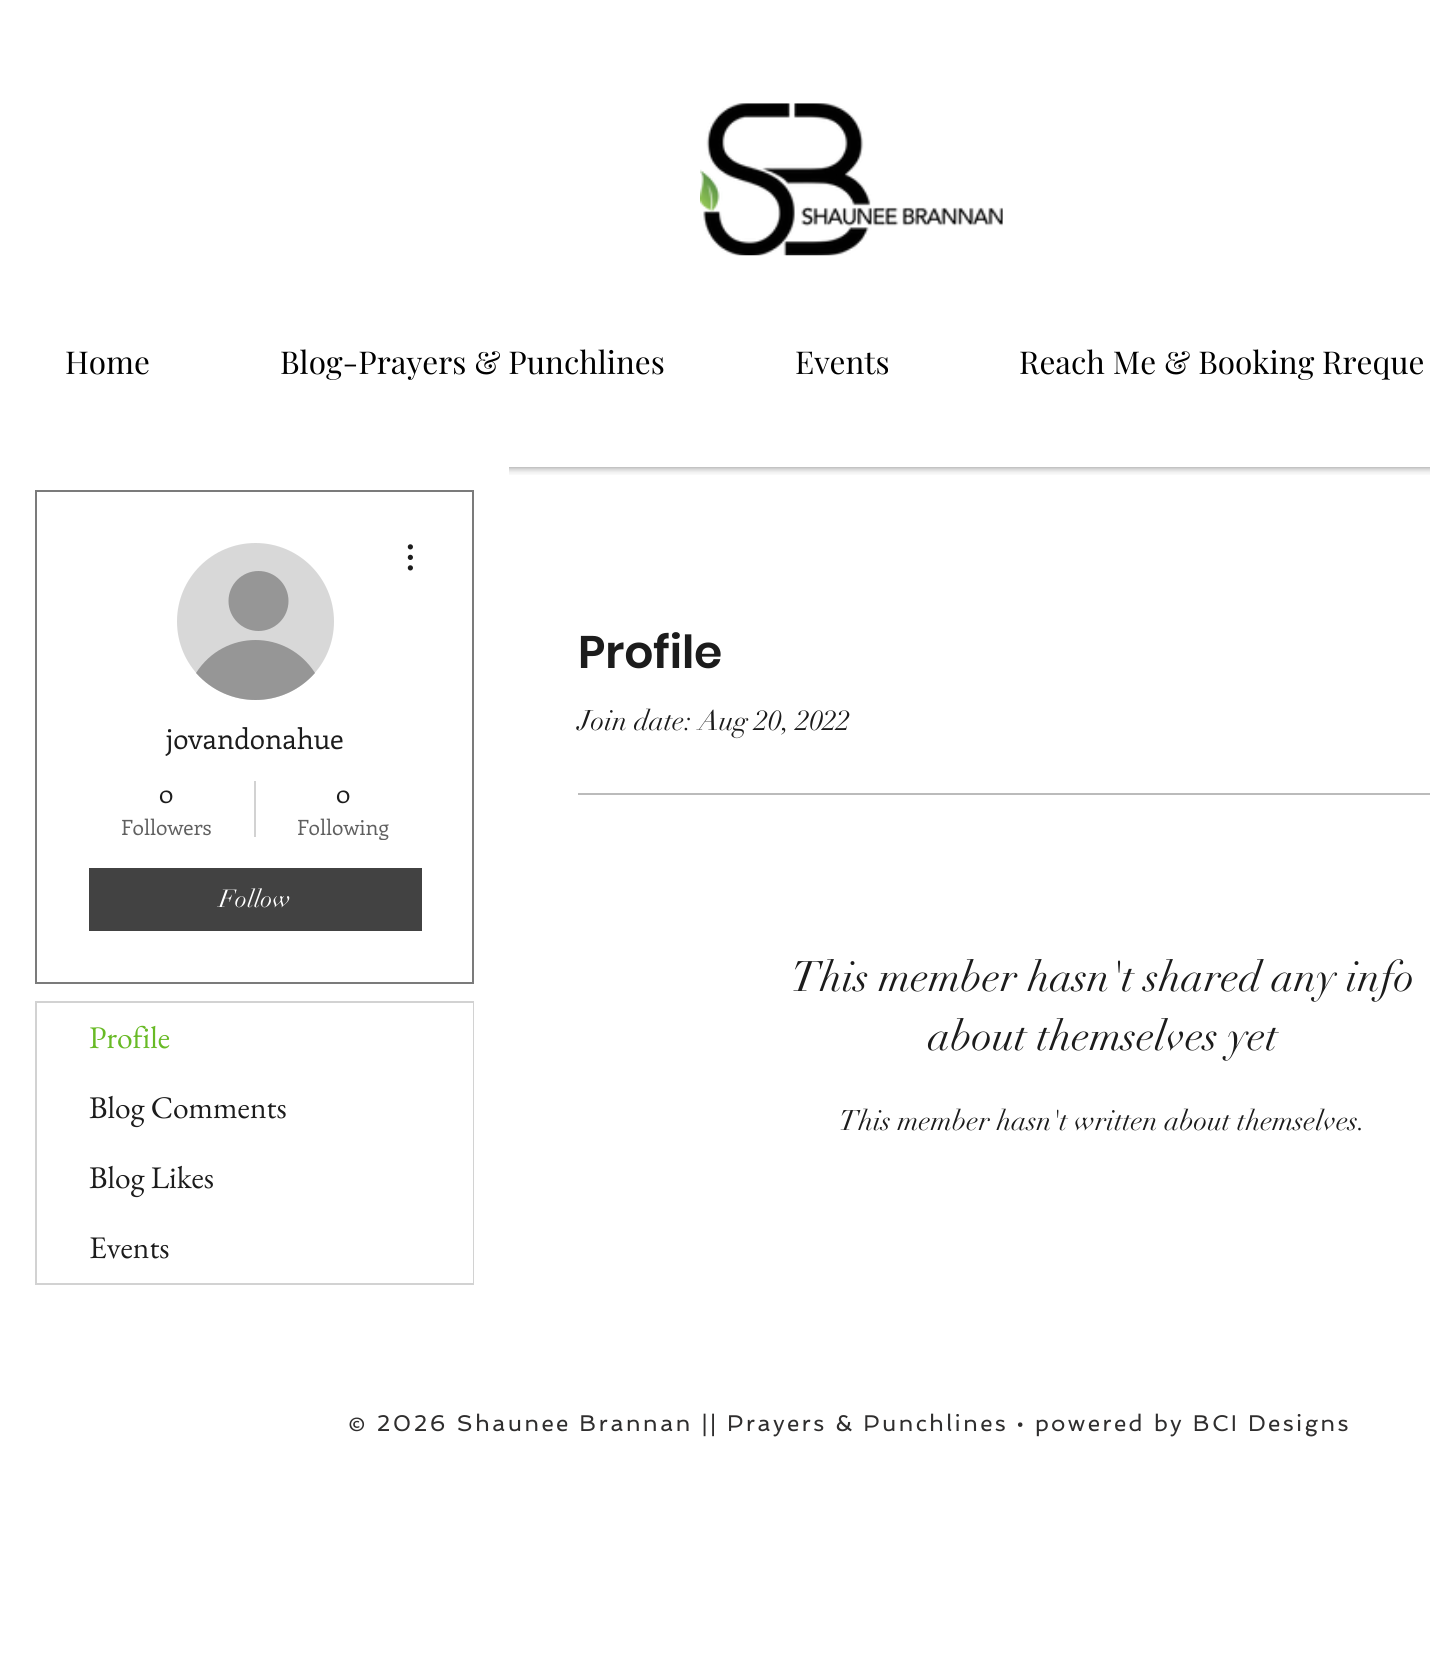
import math
import cairo

surface = cairo.ImageSurface(cairo.FORMAT_RGB24, 1430, 1671)
ctx = cairo.Context(surface)
options = cairo.FontOptions()
options.set_hint_metrics(cairo.HINT_METRICS_OFF)
options.set_hint_style(cairo.HINT_STYLE_NONE)
ctx.set_font_options(options)
ctx.set_miter_limit(4)


def set_color(code):
    ctx.set_source_rgb(*(v / 255 for v in bytes.fromhex(code[-6:])))


def draw_text(x, y, s, family, size, color, bold=False, italic=False):
    ctx.select_font_face(family, cairo.FONT_SLANT_ITALIC if italic else cairo.FONT_SLANT_NORMAL, cairo.FONT_WEIGHT_BOLD if bold else cairo.FONT_WEIGHT_NORMAL)
    ctx.set_font_size(size)
    set_color(color)
    ctx.move_to(x, y)
    ctx.show_text(s)


def draw_spaced(x, y, s, letter, word):
    ctx.move_to(x, y)
    for ch in s:
        ctx.show_text(ch)
        ctx.rel_move_to(letter + word * (ch == ' '), 0)


def fill_rect(x, y, w, h, color):
    set_color(color)
    ctx.rectangle(x, y, w, h)
    ctx.fill()


def rounded_rect(x, y, w, h, r):
    ctx.new_sub_path()
    for i, (u, v) in enumerate([(x + w - r, y + h - r), (x + r, y + h - r), (x + r, y + r), (x + w - r, y + r)]):
        ctx.arc(u, v, r, i * math.pi / 2, (i + 1) * math.pi / 2)
    ctx.close_path()


def draw_shadow(x, y, w, h, r, blur, alpha):
    ctx.push_group_with_content(cairo.CONTENT_ALPHA)
    ctx.set_operator(cairo.OPERATOR_SOURCE)
    for i in range(15, -16, -2):
        e = blur * i / 6
        if min(w, h) + 2 * e > 0:
            ctx.set_source_rgba(0, 0, 0, alpha * math.erfc((i - 1) / 8.5) / 2)
            rounded_rect(x - e, y - e, w + 2 * e, h + 2 * e, max(0, min(r + e + blur * .6, min(w, h) / 2 + e)))
            ctx.fill()
    ctx.mask(ctx.pop_group())


def draw_image(path, x, y, w, h):
    ctx.save()
    ctx.set_source_surface(cairo.ImageSurface.create_from_png(path), x, y)
    ctx.rectangle(x, y, w, h)
    ctx.fill()
    ctx.restore()


set_color("#ffffff")
ctx.paint()
ctx.save()
ctx.rectangle(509, 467, 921, 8)
ctx.clip()
set_color("#000000")
draw_shadow(0, 0, 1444, 467, 0, 4.5, 0.5)
ctx.restore()
draw_image("assets/img1.png", 700, 103, 303, 153)
draw_text(65, 374, "Home", "Playfair Display", 31.5, "#000000")
draw_text(280, 374, "Blog-Prayers & Punchlines", "Playfair Display", 31.5, "#000000")
draw_text(795, 374, "Events", "Playfair Display", 31.5, "#000000")
draw_text(1019, 374, "Reach Me & Booking Rreque", "Playfair Display", 31.5, "#000000")
fill_rect(0, 467, 509, 9, "#ffffff")
ctx.rectangle(36, 491, 437, 492)
set_color("#7b7b7b")
ctx.stroke()
set_color("#d8d8d8")
ctx.arc(255.5, 621.5, 78.5, 0, 2 * math.pi)
ctx.fill()
set_color("#969696")
ctx.arc(258.5, 601, 30, 0, 2 * math.pi)
ctx.fill()
ctx.new_path()
ctx.move_to(315, 673)
ctx.curve_to(283, 709, 228, 709, 196, 673)
ctx.curve_to(224, 629, 287, 629, 315, 673)
ctx.close_path()
ctx.fill()
draw_image("assets/img2.png", 407, 544, 6, 27)
draw_text(166, 749, "jovandonahue", "Enriqueta", 28, "#1c1c1c")
draw_text(159, 803, "0", "Enriqueta", 24.5, "#1c1c1c")
draw_text(121, 835, "Followers", "Enriqueta", 21, "#606060")
fill_rect(254, 781, 2, 56, "#d2d2d2")
draw_text(336, 803, "0", "Enriqueta", 24.5, "#1c1c1c")
ctx.save()
ctx.rectangle(298, 812, 91, 28)
ctx.clip()
draw_text(297, 835, "Following", "Enriqueta", 21, "#606060")
ctx.restore()
fill_rect(89, 868, 333, 63, "#424242")
draw_text(219, 907, "Follow", "didot", 24.5, "#ffffff")
ctx.rectangle(36, 1002, 437, 282)
set_color("#d2d2d2")
ctx.stroke()
fill_rect(472, 1003, 1, 280, "#ffffff")
draw_text(89, 1048, "Profile", "EB Garamond", 31.5, "#68ba25")
draw_text(89, 1118, "Blog Comments", "EB Garamond", 31.5, "#1c1c1c")
draw_text(89, 1188, "Blog Likes", "EB Garamond", 31.5, "#1c1c1c")
draw_text(89, 1258, "Events", "EB Garamond", 31.5, "#1c1c1c")
draw_text(578, 668, "Profile", "Poppins SemiBold", 45.5, "#1c1c1c")
draw_text(578, 730, "Join date: Aug 20, 2022", "didot", 28, "#1c1c1c")
fill_rect(578, 793, 852, 2, "#bbbbbb")
draw_text(791, 991, "This member hasn't shared any info", "didot", 42, "#1c1c1c")
draw_text(928, 1050, "about themselves yet", "didot", 42, "#1c1c1c")
draw_text(839, 1130, "This member hasn't written about themselves.", "didot", 28, "#1c1c1c")
ctx.select_font_face("Spinnaker")
ctx.set_font_size(22.75)
set_color("#2f2e2e")
draw_spaced(348, 1431, "© 2026 Shaunee Brannan || Prayers & Punchlines • powered by BCI Designs", 2.27, 0)
surface.write_to_png("output.png")
